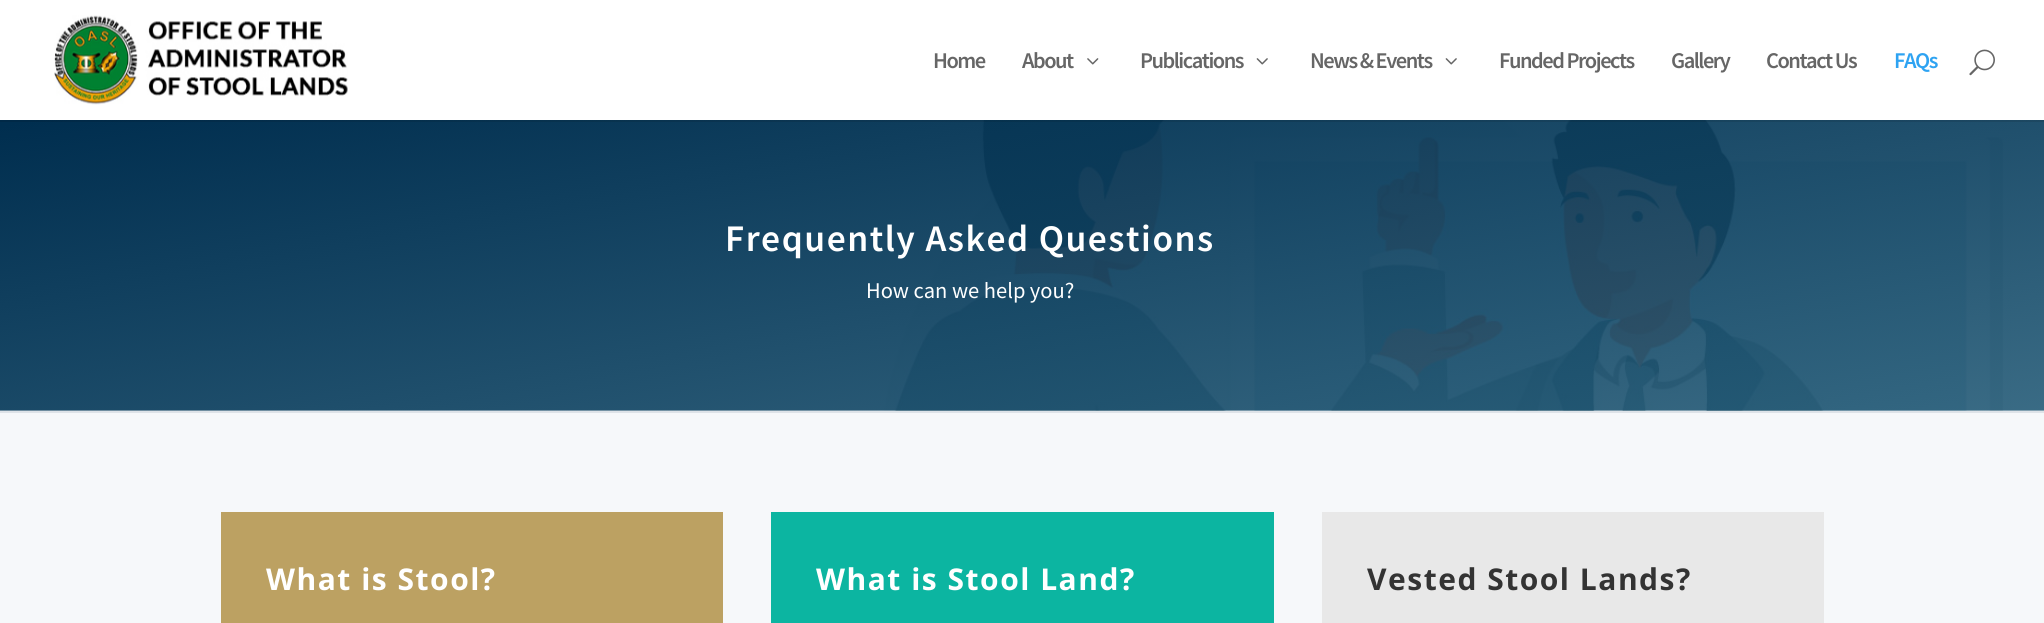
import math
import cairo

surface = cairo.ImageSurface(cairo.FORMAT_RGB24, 2044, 623)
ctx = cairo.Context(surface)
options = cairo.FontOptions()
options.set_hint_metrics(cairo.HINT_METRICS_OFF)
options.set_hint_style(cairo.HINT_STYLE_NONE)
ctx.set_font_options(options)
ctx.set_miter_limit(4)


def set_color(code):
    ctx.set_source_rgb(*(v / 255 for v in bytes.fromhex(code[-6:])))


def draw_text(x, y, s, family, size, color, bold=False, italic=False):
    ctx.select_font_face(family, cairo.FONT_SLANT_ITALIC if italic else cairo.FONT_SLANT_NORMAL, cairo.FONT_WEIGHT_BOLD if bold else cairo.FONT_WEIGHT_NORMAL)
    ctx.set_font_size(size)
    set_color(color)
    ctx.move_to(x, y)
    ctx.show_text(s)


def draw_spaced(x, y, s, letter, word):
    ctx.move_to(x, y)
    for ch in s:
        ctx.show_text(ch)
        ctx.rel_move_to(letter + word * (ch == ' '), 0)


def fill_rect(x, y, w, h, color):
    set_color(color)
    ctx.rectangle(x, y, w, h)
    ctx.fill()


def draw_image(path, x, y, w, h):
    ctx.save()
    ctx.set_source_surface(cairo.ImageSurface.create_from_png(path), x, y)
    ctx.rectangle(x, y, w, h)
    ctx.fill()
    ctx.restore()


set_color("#ffffff")
ctx.paint()
draw_image("assets/img5.png", 0, 120, 2044, 291)
ctx.set_source_rgba(0, 0, 0, 0.1)
ctx.new_path()
ctx.move_to(0, 120)
ctx.line_to(0, 122)
ctx.line_to(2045, 122)
ctx.line_to(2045, 2)
ctx.line_to(2044, 2)
ctx.line_to(2044, 120)
ctx.close_path()
ctx.fill()
draw_image("assets/img1.png", 54, 15, 294, 90)
ctx.select_font_face("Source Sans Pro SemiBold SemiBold")
ctx.set_font_size(22.5)
set_color("#666666")
draw_spaced(933, 68, "Home", -1.5, 0)
draw_spaced(1022, 68, "About", -1.5, 0)
draw_image("assets/img2.png", 1087, 58, 12, 7)
draw_spaced(1140, 68, "Publications", -1.5, 0)
draw_image("assets/img3.png", 1256, 58, 12, 7)
draw_spaced(1310, 68, "News & Events", -1.5, 0)
draw_image("assets/img3.png", 1445, 58, 12, 7)
draw_spaced(1499, 68, "Funded Projects", -1.5, 0)
draw_spaced(1671, 68, "Gallery", -1.5, 0)
draw_spaced(1766, 68, "Contact Us", -1.5, 0)
set_color("#2ea3f2")
draw_spaced(1894, 68, "FAQs", -1.5, 0)
draw_image("assets/img4.png", 1969, 49, 26, 27)
ctx.set_font_size(37.5)
set_color("#ffffff")
draw_spaced(725, 251, "Frequently Asked Questions", 1.5, 0)
draw_text(866, 298, "How can we help you?", "Source Sans Pro", 22.5, "#ffffff")
fill_rect(0, 413, 2044, 210, "#f6f8fa")
fill_rect(0, 411, 2044, 2, "#dee3e8")
fill_rect(221, 512, 502, 111, "#bca162")
ctx.select_font_face("Open Sans", cairo.FONT_SLANT_NORMAL, cairo.FONT_WEIGHT_BOLD)
ctx.set_font_size(30)
set_color("#ffffff")
draw_spaced(266, 590, "What is Stool?", 1.5, 0)
fill_rect(771, 512, 503, 111, "#0cb5a1")
set_color("#ffffff")
draw_spaced(816, 590, "What is Stool Land?", 1.5, 0)
fill_rect(1322, 512, 502, 111, "#e8e8e8")
set_color("#333333")
draw_spaced(1367, 590, "Vested Stool Lands?", 1.5, 0)
surface.write_to_png("output.png")
